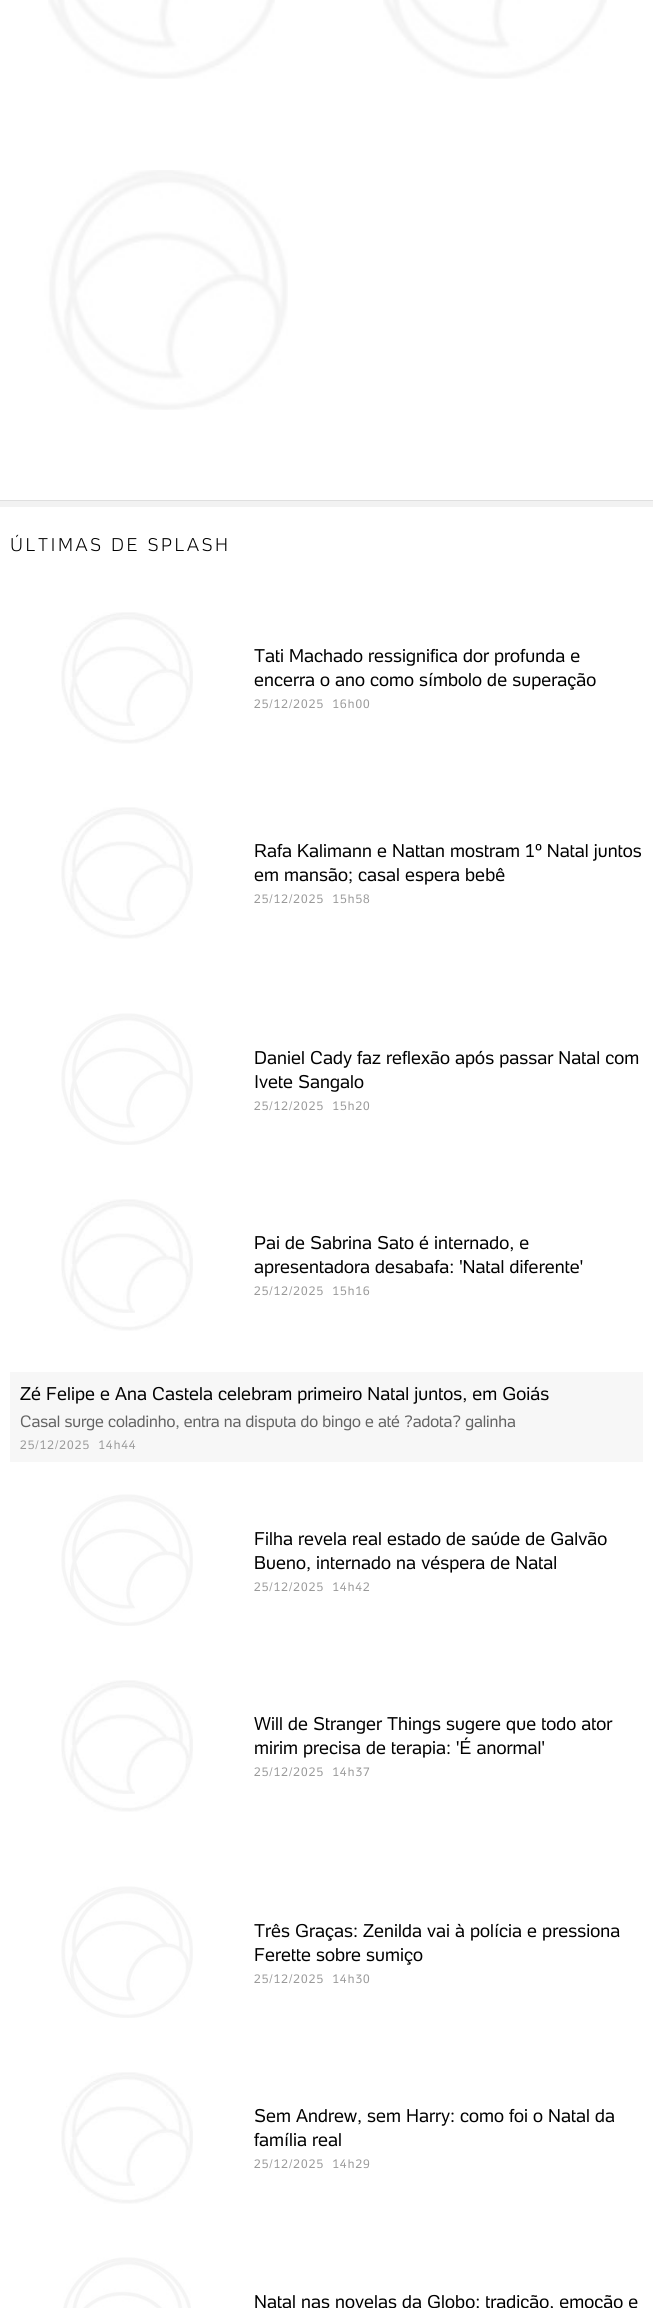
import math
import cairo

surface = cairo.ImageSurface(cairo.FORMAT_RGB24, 653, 2308)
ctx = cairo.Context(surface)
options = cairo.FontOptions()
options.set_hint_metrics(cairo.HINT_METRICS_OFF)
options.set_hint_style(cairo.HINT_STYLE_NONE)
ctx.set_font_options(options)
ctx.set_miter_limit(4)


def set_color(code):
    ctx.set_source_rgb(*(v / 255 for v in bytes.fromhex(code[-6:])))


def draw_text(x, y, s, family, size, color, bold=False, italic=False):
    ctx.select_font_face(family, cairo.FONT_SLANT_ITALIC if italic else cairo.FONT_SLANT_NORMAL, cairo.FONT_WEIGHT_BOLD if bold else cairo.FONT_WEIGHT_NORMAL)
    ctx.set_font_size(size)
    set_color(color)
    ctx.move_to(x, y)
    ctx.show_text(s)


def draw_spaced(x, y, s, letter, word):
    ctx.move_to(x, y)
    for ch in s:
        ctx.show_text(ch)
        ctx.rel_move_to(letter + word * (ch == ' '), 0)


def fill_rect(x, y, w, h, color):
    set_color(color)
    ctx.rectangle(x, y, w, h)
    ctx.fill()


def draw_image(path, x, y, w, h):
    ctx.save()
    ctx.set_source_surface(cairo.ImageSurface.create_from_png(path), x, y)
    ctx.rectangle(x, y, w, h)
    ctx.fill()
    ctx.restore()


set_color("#ffffff")
ctx.paint()
draw_image("assets/img1.png", 48, 0, 227, 79)
draw_image("assets/img2.png", 383, 0, 224, 79)
draw_image("assets/img3.png", 44, 170, 239, 240)
draw_image("assets/img4.png", 44, 174, 244, 233)
fill_rect(0, 501, 653, 6, "#f2f2f2")
fill_rect(0, 500, 653, 1, "#dfdfdf")
ctx.select_font_face("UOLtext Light")
ctx.set_font_size(18)
set_color("#000000")
draw_spaced(10, 551, "ÚLTIMAS DE SPLASH", 2.5, 0)
draw_image("assets/img5.png", 61, 612, 132, 132)
draw_text(254, 662, "Tati Machado ressignifica dor profunda e", "UOLtext", 18, "#000000")
draw_text(254, 686, "encerra o ano como símbolo de superação", "UOLtext", 18, "#000000")
ctx.set_font_size(12)
set_color("#999999")
draw_spaced(254, 708, "25/12/2025 16h00", 1, 4)
draw_image("assets/img5.png", 61, 807, 132, 132)
draw_text(254, 857, "Rafa Kalimann e Nattan mostram 1º Natal juntos", "UOLtext", 18, "#000000")
draw_text(254, 881, "em mansão; casal espera bebê", "UOLtext", 18, "#000000")
ctx.set_font_size(12)
set_color("#999999")
draw_spaced(254, 903, "25/12/2025 15h58", 1, 4)
draw_image("assets/img6.png", 61, 1013, 132, 132)
draw_text(254, 1064, "Daniel Cady faz reflexão após passar Natal com", "UOLtext", 18, "#000000")
draw_text(254, 1088, "Ivete Sangalo", "UOLtext", 18, "#000000")
ctx.set_font_size(12)
set_color("#999999")
draw_spaced(254, 1110, "25/12/2025 15h20", 1, 4)
draw_image("assets/img5.png", 61, 1199, 132, 132)
draw_text(254, 1249, "Pai de Sabrina Sato é internado, e", "UOLtext", 18, "#000000")
draw_text(254, 1273, "apresentadora desabafa: 'Natal diferente'", "UOLtext", 18, "#000000")
ctx.set_font_size(12)
set_color("#999999")
draw_spaced(254, 1295, "25/12/2025 15h16", 1, 4)
fill_rect(10, 1372, 633, 90, "#f7f7f7")
draw_text(20, 1400, "Zé Felipe e Ana Castela celebram primeiro Natal juntos, em Goiás", "UOLtext", 18, "#000000")
ctx.set_font_size(16)
set_color("#636363")
draw_spaced(20, 1427, "Casal surge coladinho, entra na disputa do bingo e até ?adota? galinha", -0.15, 0)
ctx.set_font_size(12)
set_color("#999999")
draw_spaced(20, 1449, "25/12/2025 14h44", 1, 4)
draw_image("assets/img7.png", 61, 1494, 132, 132)
draw_text(254, 1545, "Filha revela real estado de saúde de Galvão", "UOLtext", 18, "#000000")
draw_text(254, 1569, "Bueno, internado na véspera de Natal", "UOLtext", 18, "#000000")
ctx.set_font_size(12)
set_color("#999999")
draw_spaced(254, 1591, "25/12/2025 14h42", 1, 4)
draw_image("assets/img5.png", 61, 1680, 132, 132)
draw_text(254, 1730, "Will de Stranger Things sugere que todo ator", "UOLtext", 18, "#000000")
draw_text(254, 1754, "mirim precisa de terapia: 'É anormal'", "UOLtext", 18, "#000000")
ctx.set_font_size(12)
set_color("#999999")
draw_spaced(254, 1776, "25/12/2025 14h37", 1, 4)
draw_image("assets/img6.png", 61, 1886, 132, 132)
draw_text(254, 1937, "Três Graças: Zenilda vai à polícia e pressiona", "UOLtext", 18, "#000000")
draw_text(254, 1961, "Ferette sobre sumiço", "UOLtext", 18, "#000000")
ctx.set_font_size(12)
set_color("#999999")
draw_spaced(254, 1983, "25/12/2025 14h30", 1, 4)
draw_image("assets/img5.png", 61, 2072, 132, 132)
draw_text(254, 2122, "Sem Andrew, sem Harry: como foi o Natal da", "UOLtext", 18, "#000000")
draw_text(254, 2146, "família real", "UOLtext", 18, "#000000")
ctx.set_font_size(12)
set_color("#999999")
draw_spaced(254, 2168, "25/12/2025 14h29", 1, 4)
draw_image("assets/img8.png", 63, 2257, 128, 51)
draw_text(254, 2308, "Natal nas novelas da Globo: tradição, emoção e", "UOLtext", 18, "#000000")
surface.write_to_png("output.png")
